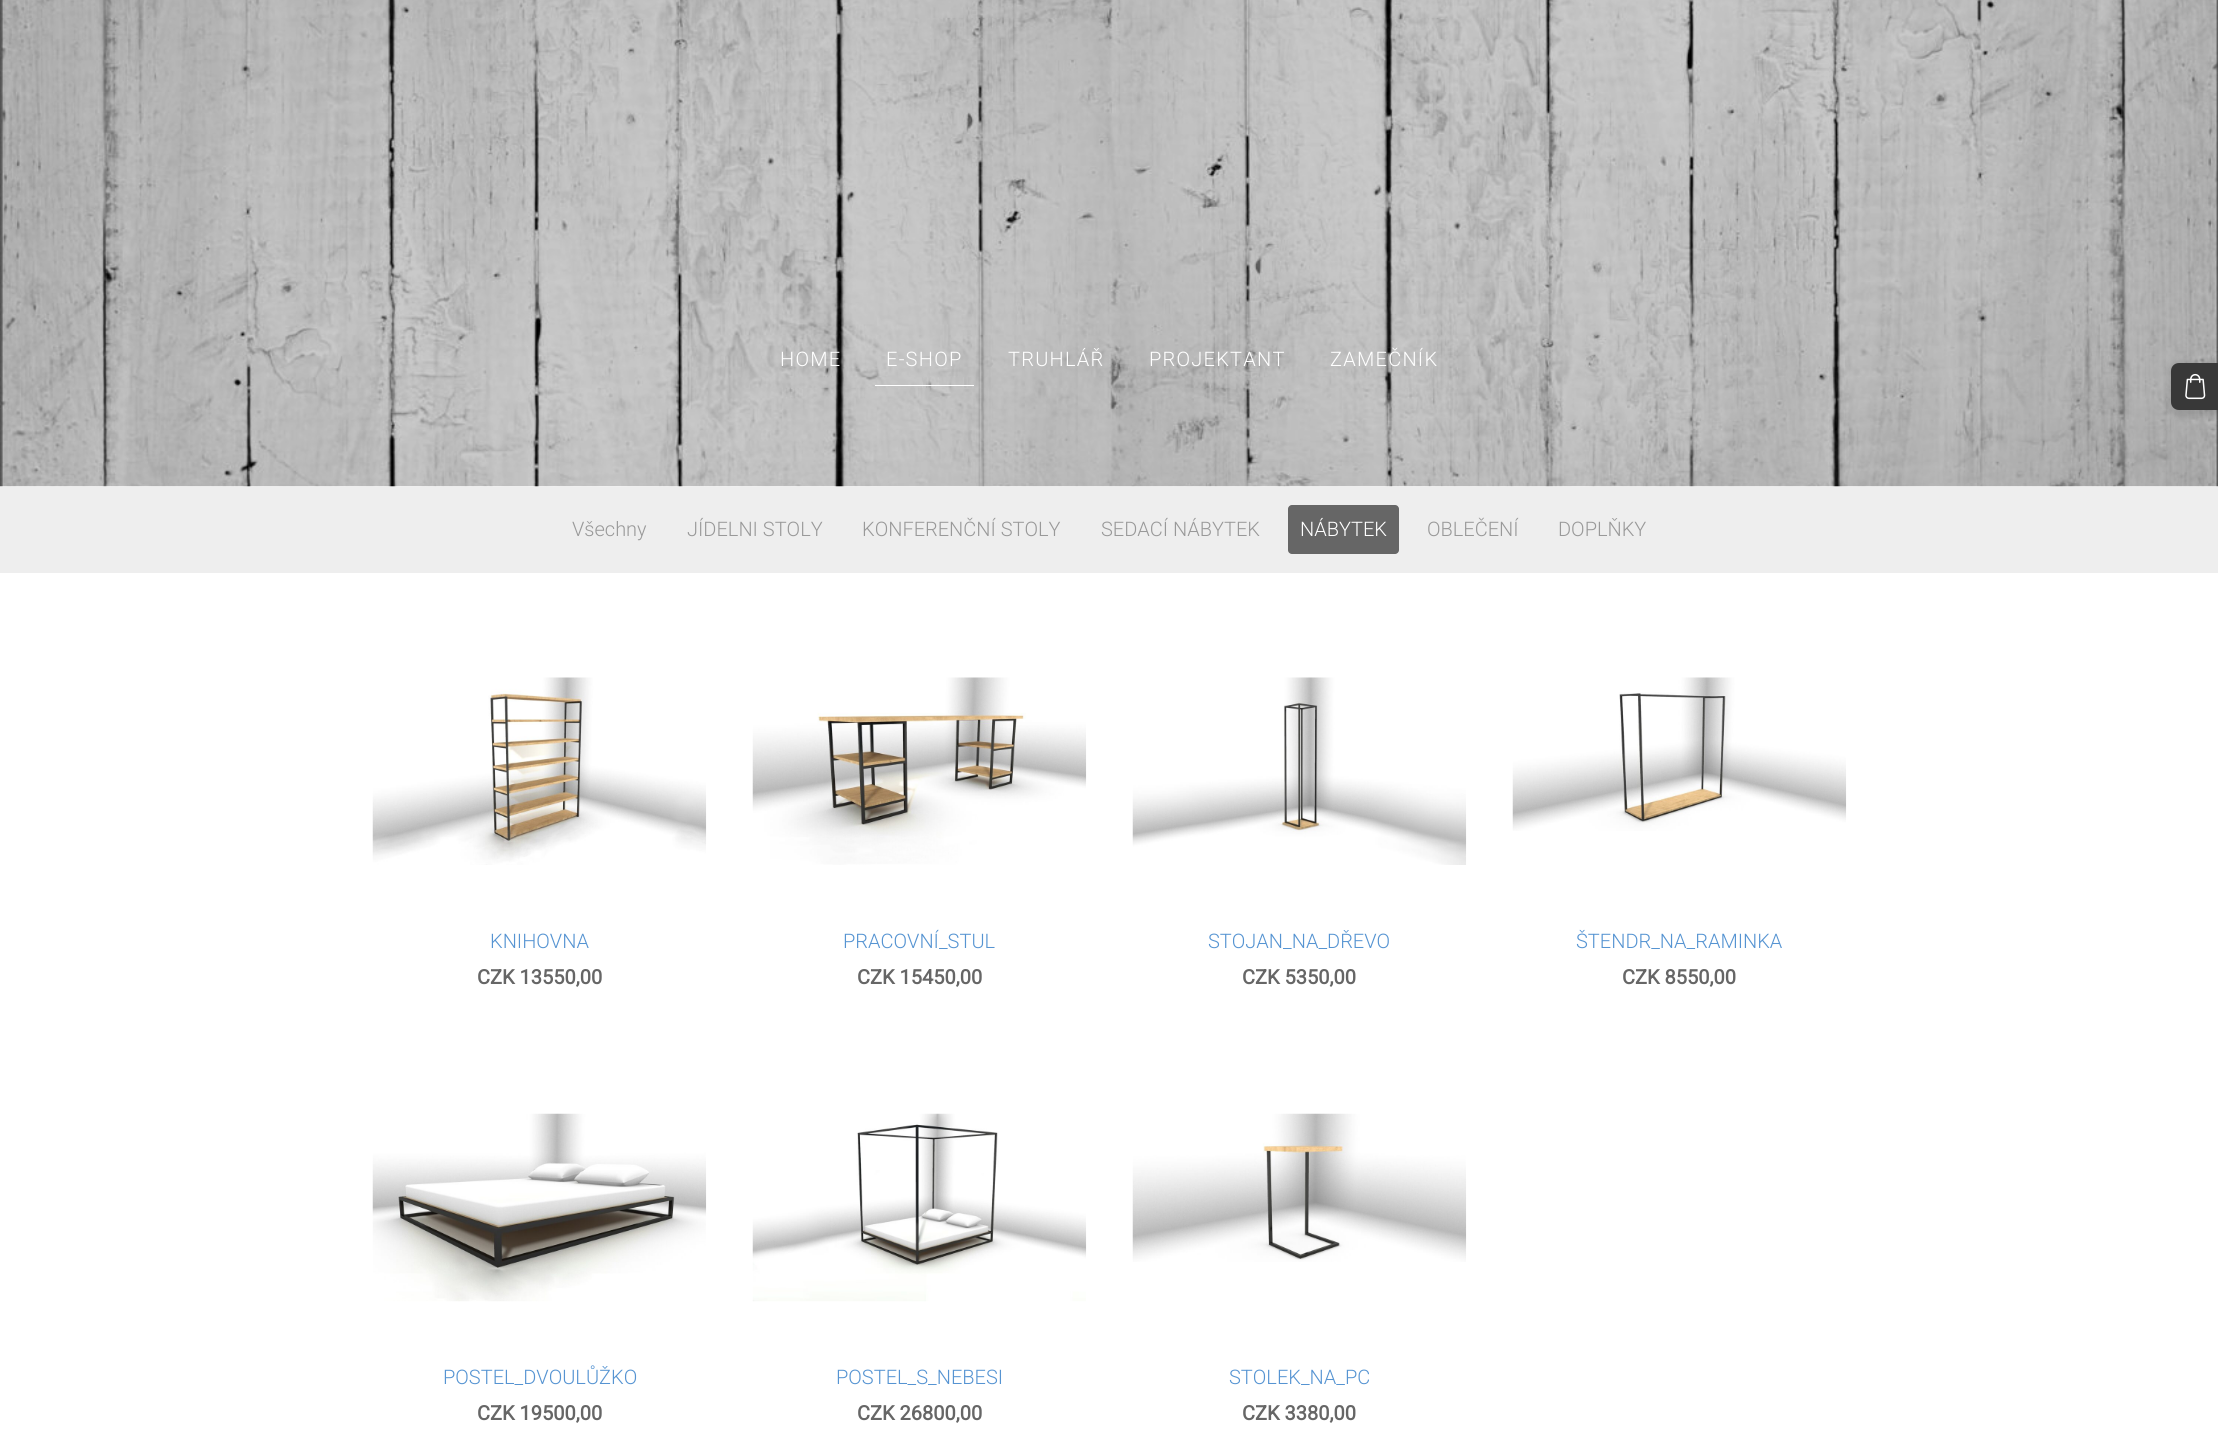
import math
import cairo

surface = cairo.ImageSurface(cairo.FORMAT_RGB24, 2218, 1450)
ctx = cairo.Context(surface)
options = cairo.FontOptions()
options.set_hint_metrics(cairo.HINT_METRICS_OFF)
options.set_hint_style(cairo.HINT_STYLE_NONE)
ctx.set_font_options(options)
ctx.set_miter_limit(4)


def set_color(code):
    ctx.set_source_rgb(*(v / 255 for v in bytes.fromhex(code[-6:])))


def draw_text(x, y, s, family, size, color, bold=False, italic=False):
    ctx.select_font_face(family, cairo.FONT_SLANT_ITALIC if italic else cairo.FONT_SLANT_NORMAL, cairo.FONT_WEIGHT_BOLD if bold else cairo.FONT_WEIGHT_NORMAL)
    ctx.set_font_size(size)
    set_color(color)
    ctx.move_to(x, y)
    ctx.show_text(s)


def draw_spaced(x, y, s, letter, word):
    ctx.move_to(x, y)
    for ch in s:
        ctx.show_text(ch)
        ctx.rel_move_to(letter + word * (ch == ' '), 0)


def fill_rect(x, y, w, h, color):
    set_color(color)
    ctx.rectangle(x, y, w, h)
    ctx.fill()


def rounded_rect(x, y, w, h, r):
    ctx.new_sub_path()
    for i, (u, v) in enumerate([(x + w - r, y + h - r), (x + r, y + h - r), (x + r, y + r), (x + w - r, y + r)]):
        ctx.arc(u, v, r, i * math.pi / 2, (i + 1) * math.pi / 2)
    ctx.close_path()


def draw_shadow(x, y, w, h, r, blur, alpha):
    ctx.push_group_with_content(cairo.CONTENT_ALPHA)
    ctx.set_operator(cairo.OPERATOR_SOURCE)
    for i in range(15, -16, -2):
        e = blur * i / 6
        if min(w, h) + 2 * e > 0:
            ctx.set_source_rgba(0, 0, 0, alpha * math.erfc((i - 1) / 8.5) / 2)
            rounded_rect(x - e, y - e, w + 2 * e, h + 2 * e, max(0, min(r + e + blur * .6, min(w, h) / 2 + e)))
            ctx.fill()
    ctx.mask(ctx.pop_group())


def draw_image(path, x, y, w, h):
    ctx.save()
    ctx.set_source_surface(cairo.ImageSurface.create_from_png(path), x, y)
    ctx.rectangle(x, y, w, h)
    ctx.fill()
    ctx.restore()


set_color("#ffffff")
ctx.paint()
fill_rect(0, 486, 2218, 87, "#eeeeee")
draw_image("assets/img1.png", 0, 0, 2218, 487)
ctx.select_font_face("Roboto Light")
ctx.set_font_size(20)
set_color("#ffffff")
draw_spaced(780, 366, "HOME", 1.25, 0)
fill_rect(875, 385, 99, 1, "#ffffff")
draw_spaced(886, 366, "E-SHOP", 1.25, 0)
draw_spaced(1008, 366, "TRUHLÁŘ", 1.25, 0)
draw_spaced(1149, 366, "PROJEKTANT", 1.25, 0)
draw_spaced(1330, 366, "ZAMEČNÍK", 1.25, 0)
set_color("#000000")
draw_shadow(2168, 361, 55, 55, 11, 3, 0.1)
set_color("#383838")
ctx.new_path()
ctx.move_to(2179, 363)
ctx.line_to(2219, 363)
ctx.line_to(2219, 410)
ctx.line_to(2179, 410)
ctx.curve_to(2174.5, 410, 2171, 406.5, 2171, 402)
ctx.line_to(2171, 371)
ctx.curve_to(2171, 366.5, 2174.5, 363, 2179, 363)
ctx.close_path()
ctx.fill()
draw_image("assets/img2.png", 2185, 373, 21, 27)
draw_text(572, 536, "Všechny", "Roboto Light", 20, "#999999")
draw_text(687, 536, "JÍDELNI STOLY", "Roboto Light", 20, "#999999")
draw_text(862, 536, "KONFERENČNÍ STOLY", "Roboto Light", 20, "#999999")
draw_text(1101, 536, "SEDACÍ NÁBYTEK", "Roboto Light", 20, "#999999")
set_color("#666666")
rounded_rect(1288, 505, 111, 49, 4)
ctx.fill()
draw_text(1300, 536, "NÁBYTEK", "Roboto Light", 20, "#ffffff")
draw_text(1427, 536, "OBLEČENÍ", "Roboto Light", 20, "#999999")
draw_text(1558, 536, "DOPLŇKY", "Roboto Light", 20, "#999999")
draw_image("assets/img3.png", 372, 677, 335, 188)
draw_text(490, 948, "KNIHOVNA", "Roboto Light", 20, "#5694d2")
draw_text(477, 984, "CZK 13550,00", "Roboto", 20, "#666666", bold=True)
draw_image("assets/img4.png", 752, 677, 335, 188)
draw_text(843, 948, "PRACOVNÍ_STUL", "Roboto Light", 20, "#5694d2")
draw_text(857, 984, "CZK 15450,00", "Roboto", 20, "#666666", bold=True)
draw_image("assets/img5.png", 1132, 677, 335, 188)
draw_text(1208, 948, "STOJAN_NA_DŘEVO", "Roboto Light", 20, "#5694d2")
draw_text(1242, 984, "CZK 5350,00", "Roboto", 20, "#666666", bold=True)
draw_image("assets/img6.png", 1512, 677, 335, 154)
draw_text(1576, 948, "ŠTENDR_NA_RAMINKA", "Roboto Light", 20, "#5694d2")
draw_text(1622, 984, "CZK 8550,00", "Roboto", 20, "#666666", bold=True)
draw_image("assets/img7.png", 372, 1113, 335, 189)
draw_text(443, 1384, "POSTEL_DVOULŮŽKO", "Roboto Light", 20, "#5694d2")
draw_text(477, 1420, "CZK 19500,00", "Roboto", 20, "#666666", bold=True)
draw_image("assets/img8.png", 752, 1113, 335, 189)
draw_text(836, 1384, "POSTEL_S_NEBESI", "Roboto Light", 20, "#5694d2")
draw_text(857, 1420, "CZK 26800,00", "Roboto", 20, "#666666", bold=True)
draw_image("assets/img9.png", 1132, 1113, 335, 149)
draw_text(1229, 1384, "STOLEK_NA_PC", "Roboto Light", 20, "#5694d2")
draw_text(1242, 1420, "CZK 3380,00", "Roboto", 20, "#666666", bold=True)
surface.write_to_png("output.png")
